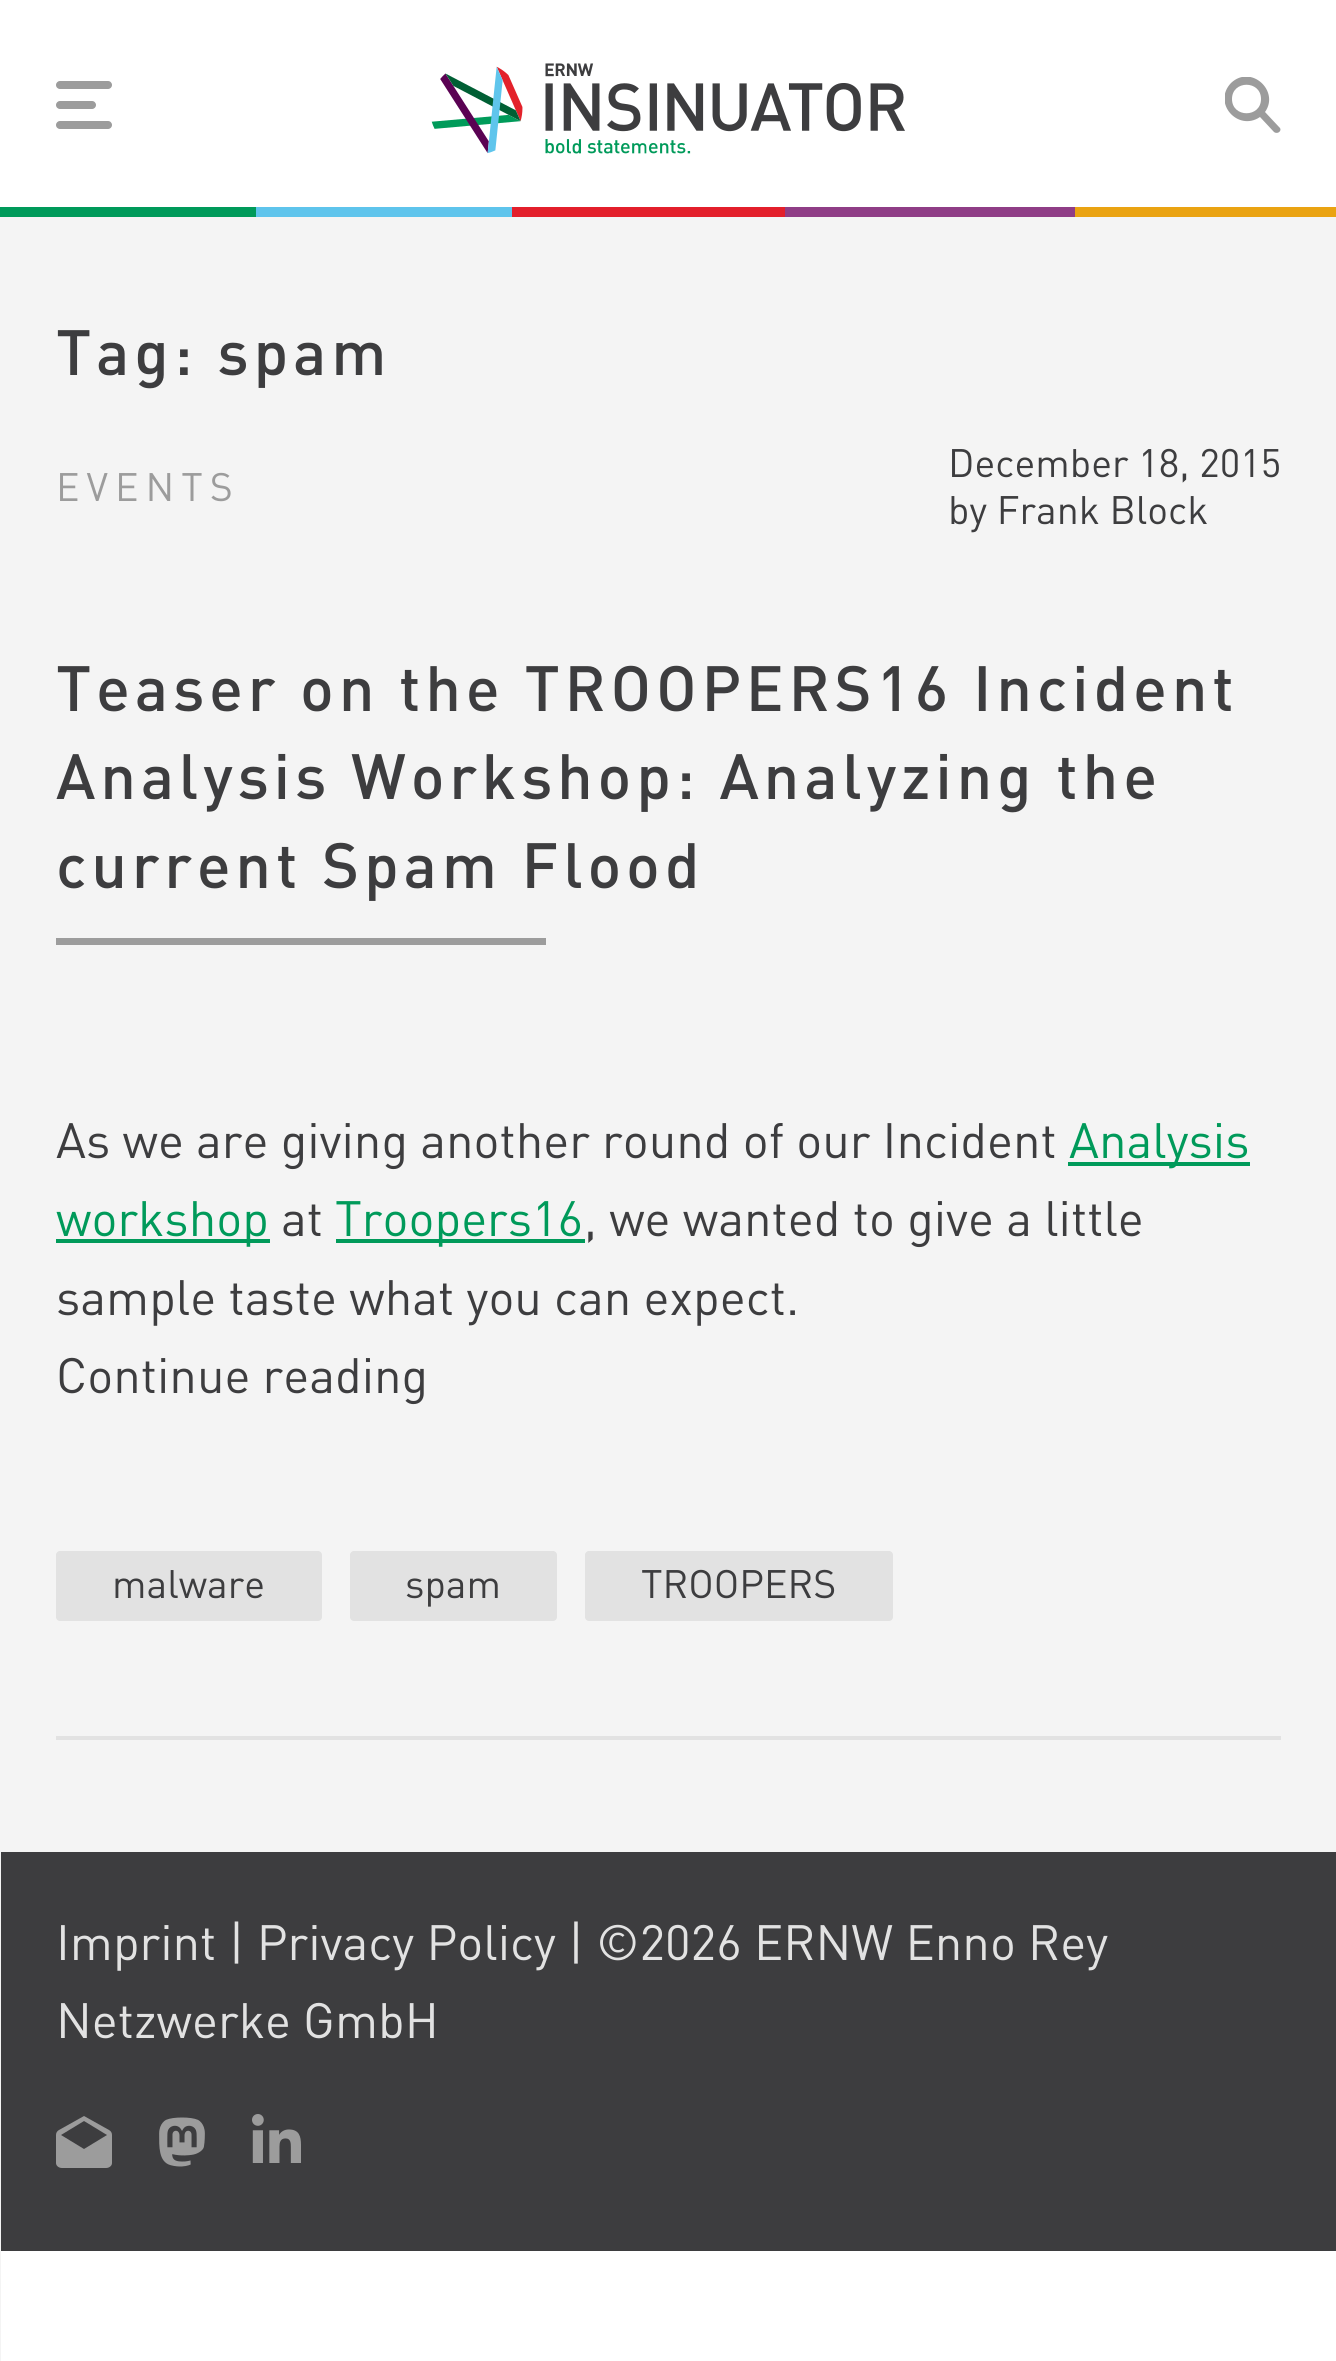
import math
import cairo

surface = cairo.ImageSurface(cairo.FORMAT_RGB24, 1336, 2361)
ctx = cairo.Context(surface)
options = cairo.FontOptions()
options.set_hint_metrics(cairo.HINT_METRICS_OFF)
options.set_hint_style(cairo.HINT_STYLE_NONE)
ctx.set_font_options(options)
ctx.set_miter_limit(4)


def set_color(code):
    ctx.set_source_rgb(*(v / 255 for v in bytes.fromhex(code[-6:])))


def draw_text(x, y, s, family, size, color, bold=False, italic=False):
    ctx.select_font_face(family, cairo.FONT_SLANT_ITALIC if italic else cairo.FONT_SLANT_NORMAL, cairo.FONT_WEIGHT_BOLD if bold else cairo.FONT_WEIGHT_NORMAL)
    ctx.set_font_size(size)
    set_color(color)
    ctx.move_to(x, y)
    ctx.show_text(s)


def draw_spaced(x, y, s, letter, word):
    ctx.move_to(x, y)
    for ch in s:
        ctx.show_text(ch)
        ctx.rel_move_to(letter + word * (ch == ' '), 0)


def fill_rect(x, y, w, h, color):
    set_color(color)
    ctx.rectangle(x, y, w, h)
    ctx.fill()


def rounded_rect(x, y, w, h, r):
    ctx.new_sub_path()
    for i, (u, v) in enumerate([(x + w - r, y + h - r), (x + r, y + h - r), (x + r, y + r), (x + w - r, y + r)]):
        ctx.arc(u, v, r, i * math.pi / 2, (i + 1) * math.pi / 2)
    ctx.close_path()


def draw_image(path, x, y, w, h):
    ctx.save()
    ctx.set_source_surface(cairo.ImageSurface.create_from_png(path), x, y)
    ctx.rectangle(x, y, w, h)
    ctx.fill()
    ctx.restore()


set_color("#ffffff")
ctx.paint()
fill_rect(1, 217, 1335, 1635, "#f4f4f4")
set_color("#9c9c9c")
rounded_rect(56, 81, 56, 8, 4)
ctx.fill()
rounded_rect(56, 101, 40, 8, 4)
ctx.fill()
rounded_rect(56, 121, 56, 8, 4)
ctx.fill()
fill_rect(0, 217, 1, 2144, "#f4f4f4")
draw_image("assets/img1.png", 431, 63, 474, 91)
ctx.save()
ctx.rectangle(1225, 77, 56, 56)
ctx.clip()
set_color("#9c9c9c")
ctx.new_path()
ctx.move_to(1279, 127)
ctx.line_to(1265, 112)
ctx.curve_to(1280, 91, 1251, 64, 1231, 83)
ctx.curve_to(1212, 103, 1238, 132, 1260, 117)
ctx.line_to(1274, 132)
ctx.curve_to(1278, 135, 1283, 130, 1279, 127)
ctx.close_path()
ctx.move_to(1261, 99)
ctx.curve_to(1261, 118, 1232, 118, 1232, 99)
ctx.curve_to(1232, 80, 1261, 80, 1261, 99)
ctx.close_path()
ctx.fill()
ctx.restore()
fill_rect(0, 207, 256, 10, "#009a5a")
fill_rect(256, 207, 256, 10, "#5ec4ec")
fill_rect(512, 207, 273, 10, "#e31f2b")
fill_rect(785, 207, 290, 10, "#8f3d86")
fill_rect(1075, 207, 261, 10, "#eaa312")
ctx.select_font_face("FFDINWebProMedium")
ctx.set_font_size(63)
set_color("#3d3d3f")
draw_spaced(56, 375, "Tag: spam", 4.75, 0)
fill_rect(56, 1736, 1225, 4, "#e2e2e2")
ctx.select_font_face("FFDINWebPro")
ctx.set_font_size(39.25)
set_color("#9c9c9c")
draw_spaced(56, 501, "EVENTS", 7, 0)
draw_text(948, 477, "December 18, 2015", "FFDINWebPro", 39.25, "#3d3d3f")
draw_text(948, 524, "by Frank Block", "FFDINWebPro", 39.25, "#3d3d3f")
ctx.select_font_face("FFDINWebProMedium")
ctx.set_font_size(63)
draw_spaced(56, 711, "Teaser on the TROOPERS16 Incident", 4.75, 0)
draw_spaced(56, 799, "Analysis Workshop: Analyzing the", 4.75, 0)
draw_spaced(56, 888, "current Spam Flood", 4.75, 0)
fill_rect(56, 938, 490, 7, "#9c9c9c")
draw_text(56, 1158, "As we are giving another round of our Incident", "FFDINWebPro", 49, "#3d3d3f")
fill_rect(1068, 1162, 182, 4, "#009a5a")
draw_text(1069, 1158, "Analysis", "FFDINWebPro", 49, "#009a5a")
fill_rect(56, 1239, 214, 4, "#009a5a")
draw_text(56, 1236, "workshop", "FFDINWebPro", 49, "#009a5a")
draw_text(281, 1236, "at", "FFDINWebPro", 49, "#3d3d3f")
fill_rect(336, 1239, 249, 4, "#009a5a")
draw_text(335, 1236, "Troopers16", "FFDINWebPro", 49, "#009a5a")
draw_text(584, 1236, ", we wanted to give a little", "FFDINWebPro", 49, "#3d3d3f")
draw_text(56, 1315, "sample taste what you can expect.", "FFDINWebPro", 49, "#3d3d3f")
draw_text(56, 1393, "Continue reading", "FFDINWebPro", 49, "#3d3d3f")
set_color("#e2e2e2")
rounded_rect(56, 1551, 266, 70, 4)
ctx.fill()
draw_text(112, 1598, "malware", "FFDINWebPro", 39.25, "#3d3d3f")
set_color("#e2e2e2")
rounded_rect(350, 1551, 207, 70, 4)
ctx.fill()
draw_text(405, 1598, "spam", "FFDINWebPro", 39.25, "#3d3d3f")
set_color("#e2e2e2")
rounded_rect(585, 1551, 308, 70, 4)
ctx.fill()
draw_text(641, 1598, "TROOPERS", "FFDINWebPro", 39.25, "#3d3d3f")
fill_rect(1, 1852, 1335, 399, "#3d3d3f")
draw_text(56, 1960, "Imprint | Privacy Policy | ©2026 ERNW Enno Rey", "FFDINWebPro", 49, "#e2e2e2")
draw_text(56, 2038, "Netzwerke GmbH", "FFDINWebPro", 49, "#e2e2e2")
set_color("#9c9c9c")
ctx.new_path()
ctx.move_to(112, 2135)
ctx.curve_to(112, 2133, 111, 2131, 109, 2130)
ctx.line_to(84, 2116)
ctx.line_to(59, 2130)
ctx.curve_to(57, 2131, 56, 2133, 56, 2135)
ctx.line_to(56, 2163)
ctx.curve_to(56, 2166, 59, 2168, 62, 2168)
ctx.line_to(106, 2168)
ctx.curve_to(109, 2168, 112, 2166, 112, 2163)
ctx.close_path()
ctx.move_to(84, 2149)
ctx.line_to(61, 2135)
ctx.line_to(84, 2121)
ctx.line_to(107, 2135)
ctx.close_path()
ctx.fill()
draw_image("assets/img2.png", 159, 2117, 46, 50)
draw_image("assets/img3.png", 252, 2114, 49, 49)
surface.write_to_png("output.png")
